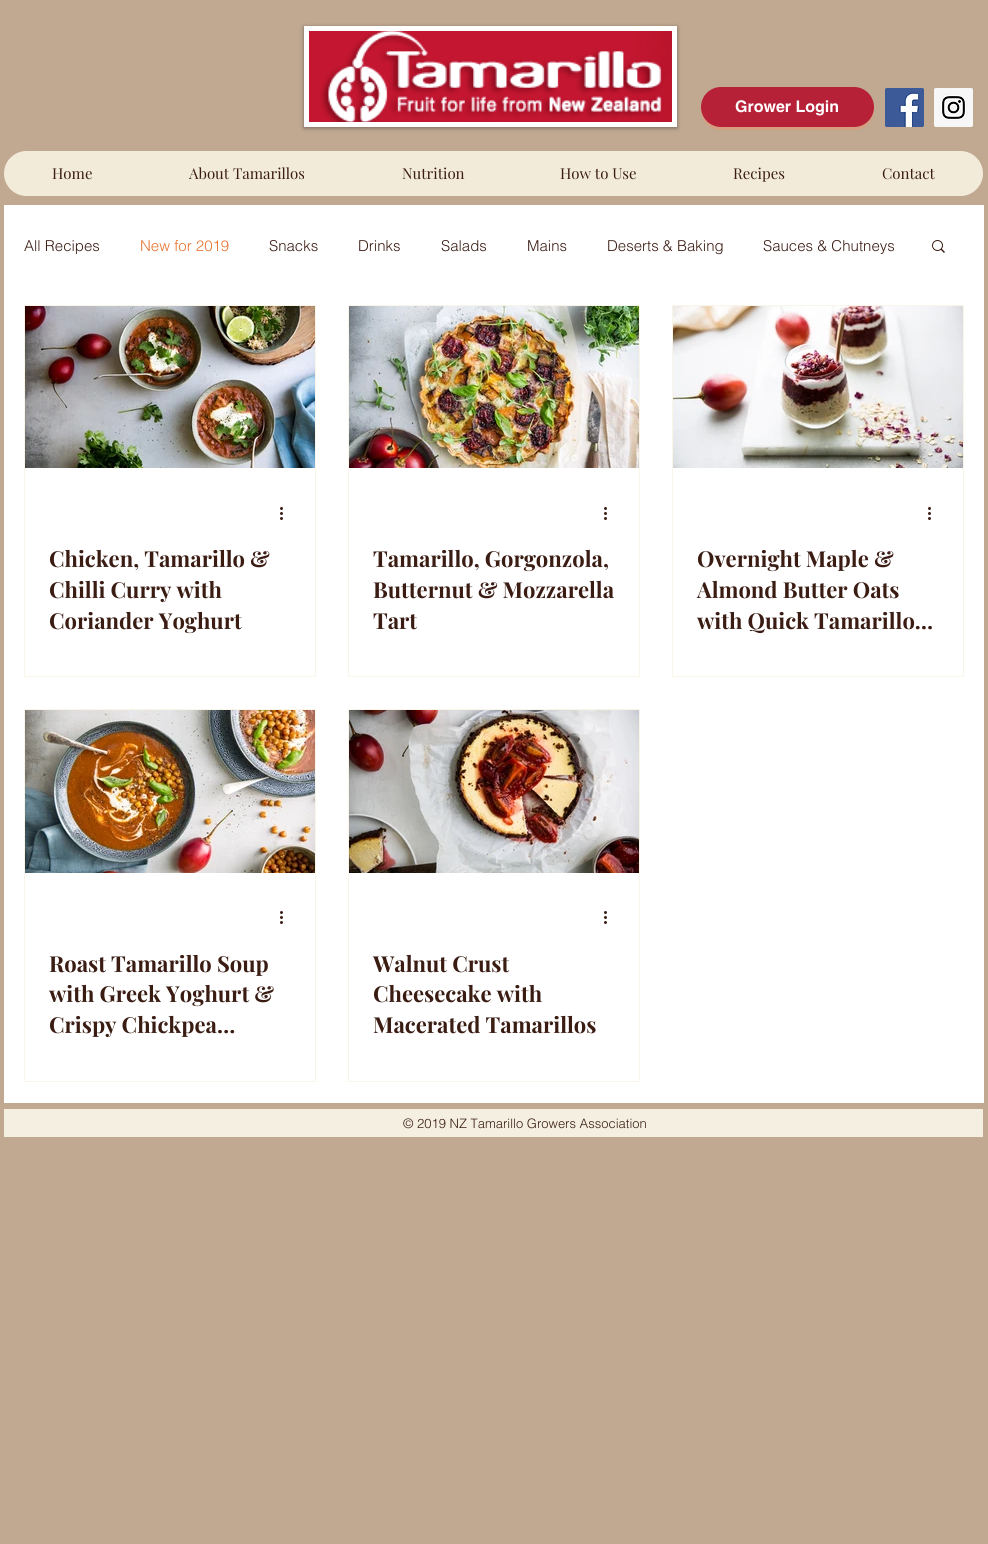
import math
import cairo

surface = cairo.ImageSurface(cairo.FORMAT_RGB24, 988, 1544)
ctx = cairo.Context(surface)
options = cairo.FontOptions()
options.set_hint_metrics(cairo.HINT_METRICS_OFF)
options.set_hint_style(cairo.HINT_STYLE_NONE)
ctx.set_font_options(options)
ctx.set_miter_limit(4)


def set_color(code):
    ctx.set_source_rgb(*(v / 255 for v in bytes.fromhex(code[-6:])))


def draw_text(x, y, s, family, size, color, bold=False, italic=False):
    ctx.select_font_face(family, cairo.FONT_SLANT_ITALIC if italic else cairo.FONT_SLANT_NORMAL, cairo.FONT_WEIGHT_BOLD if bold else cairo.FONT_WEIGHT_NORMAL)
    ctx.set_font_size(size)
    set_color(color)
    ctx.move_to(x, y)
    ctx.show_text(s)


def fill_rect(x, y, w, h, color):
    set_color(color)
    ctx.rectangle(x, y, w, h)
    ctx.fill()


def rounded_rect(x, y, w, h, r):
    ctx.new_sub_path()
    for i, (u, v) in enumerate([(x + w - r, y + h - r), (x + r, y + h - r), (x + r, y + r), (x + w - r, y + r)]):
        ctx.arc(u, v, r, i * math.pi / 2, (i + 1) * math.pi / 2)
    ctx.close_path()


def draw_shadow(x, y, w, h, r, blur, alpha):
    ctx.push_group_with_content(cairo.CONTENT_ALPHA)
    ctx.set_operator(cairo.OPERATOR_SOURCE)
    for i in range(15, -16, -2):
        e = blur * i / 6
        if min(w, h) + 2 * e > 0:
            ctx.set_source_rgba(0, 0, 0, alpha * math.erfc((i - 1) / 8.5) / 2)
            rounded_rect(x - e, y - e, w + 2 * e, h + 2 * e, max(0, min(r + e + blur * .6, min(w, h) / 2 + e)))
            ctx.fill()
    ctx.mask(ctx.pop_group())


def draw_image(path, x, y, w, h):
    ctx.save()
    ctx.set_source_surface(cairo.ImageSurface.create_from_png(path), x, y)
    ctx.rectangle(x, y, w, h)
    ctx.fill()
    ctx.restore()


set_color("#c0a891")
ctx.paint()
set_color("#000000")
draw_shadow(304, 27, 373, 101, 0, 2, 0.4)
fill_rect(304, 26, 373, 101, "#ffffff")
draw_image("assets/img1.png", 309, 31, 363, 91)
set_color("#d69e81")
ctx.new_path()
ctx.move_to(701, 108)
ctx.line_to(701, 110)
ctx.curve_to(701, 121, 710, 130, 721, 130)
ctx.line_to(854, 130)
ctx.curve_to(865, 130, 874, 121, 874, 110)
ctx.line_to(874, 108)
ctx.curve_to(873, 119, 865, 127, 854, 127)
ctx.line_to(721, 127)
ctx.curve_to(710, 127, 702, 119, 701, 108)
ctx.close_path()
ctx.fill()
set_color("#b72137")
rounded_rect(701, 87, 173, 40, 20)
ctx.fill()
draw_text(735, 112, "Grower Login", "helvetica", 16, "#ffffff", bold=True)
draw_image("assets/img2.png", 885, 88, 39, 39)
draw_image("assets/img3.png", 934, 88, 39, 39)
set_color("#f2ebda")
rounded_rect(4, 151, 979, 45, 22.5)
ctx.fill()
draw_text(52, 179, "Home", "Playfair Display", 15, "#3a1c13")
draw_text(189, 179, "About Tamarillos", "Playfair Display", 15, "#3a1c13")
draw_text(402, 179, "Nutrition", "Playfair Display", 15, "#3a1c13")
draw_text(560, 179, "How to Use", "Playfair Display", 15, "#3a1c13")
draw_text(733, 179, "Recipes", "Playfair Display", 15, "#3a1c13")
draw_text(882, 179, "Contact", "Playfair Display", 15, "#3a1c13")
fill_rect(4, 205, 980, 898, "#ffffff")
draw_text(24, 251, "All Recipes", "helvetica Light", 15, "#3a1c13")
draw_text(140, 251, "New for 2019", "helvetica Light", 15, "#e87330")
draw_text(269, 251, "Snacks", "helvetica Light", 15, "#3a1c13")
draw_text(358, 251, "Drinks", "helvetica Light", 15, "#3a1c13")
draw_text(441, 251, "Salads", "helvetica Light", 15, "#3a1c13")
draw_text(527, 251, "Mains", "helvetica Light", 15, "#3a1c13")
draw_text(607, 251, "Deserts & Baking", "helvetica Light", 15, "#3a1c13")
draw_text(763, 251, "Sauces & Chutneys", "helvetica Light", 15, "#3a1c13")
draw_image("assets/img4.png", 932, 240, 13, 13)
ctx.rectangle(24.5, 305.5, 291, 371)
set_color("#f9f5e9")
ctx.set_line_width(1)
ctx.stroke()
draw_image("assets/img5.png", 25, 306, 290, 162)
draw_image("assets/img6.png", 280, 507, 3, 13)
draw_text(49, 567, "Chicken, Tamarillo &", "Playfair Display", 22, "#3a1c13", bold=True)
draw_text(49, 598, "Chilli Curry with", "Playfair Display", 22, "#3a1c13", bold=True)
draw_text(49, 629, "Coriander Yoghurt", "Playfair Display", 22, "#3a1c13", bold=True)
ctx.rectangle(348.5, 305.5, 291, 371)
set_color("#f9f5e9")
ctx.stroke()
draw_image("assets/img7.png", 349, 306, 290, 162)
draw_image("assets/img6.png", 604, 507, 3, 13)
draw_text(373, 567, "Tamarillo, Gorgonzola,", "Playfair Display", 22, "#3a1c13", bold=True)
draw_text(373, 598, "Butternut & Mozzarella", "Playfair Display", 22, "#3a1c13", bold=True)
draw_text(373, 629, "Tart", "Playfair Display", 22, "#3a1c13", bold=True)
ctx.rectangle(672.5, 305.5, 291, 371)
set_color("#f9f5e9")
ctx.stroke()
draw_image("assets/img8.png", 673, 306, 290, 162)
draw_image("assets/img6.png", 928, 507, 3, 13)
draw_text(697, 567, "Overnight Maple &", "Playfair Display", 22, "#3a1c13", bold=True)
draw_text(697, 598, "Almond Butter Oats", "Playfair Display", 22, "#3a1c13", bold=True)
draw_text(697, 629, "with Quick Tamarillo…", "Playfair Display", 22, "#3a1c13", bold=True)
ctx.rectangle(24.5, 709.5, 291, 372)
set_color("#f9f5e9")
ctx.stroke()
draw_image("assets/img9.png", 25, 710, 290, 163)
draw_image("assets/img6.png", 280, 911, 3, 13)
draw_text(49, 972, "Roast Tamarillo Soup", "Playfair Display", 22, "#3a1c13", bold=True)
draw_text(49, 1002, "with Greek Yoghurt &", "Playfair Display", 22, "#3a1c13", bold=True)
draw_text(49, 1033, "Crispy Chickpea…", "Playfair Display", 22, "#3a1c13", bold=True)
ctx.rectangle(348.5, 709.5, 291, 372)
set_color("#f9f5e9")
ctx.stroke()
draw_image("assets/img10.png", 349, 710, 290, 163)
draw_image("assets/img6.png", 604, 911, 3, 13)
draw_text(373, 972, "Walnut Crust", "Playfair Display", 22, "#3a1c13", bold=True)
draw_text(373, 1002, "Cheesecake with", "Playfair Display", 22, "#3a1c13", bold=True)
draw_text(373, 1033, "Macerated Tamarillos", "Playfair Display", 22, "#3a1c13", bold=True)
fill_rect(4, 1109, 979, 28, "#f4efe1")
draw_text(403, 1128, "© 2019 NZ Tamarillo Growers Association", "helvetica Light", 13, "#3a1c13")
surface.write_to_png("output.png")
